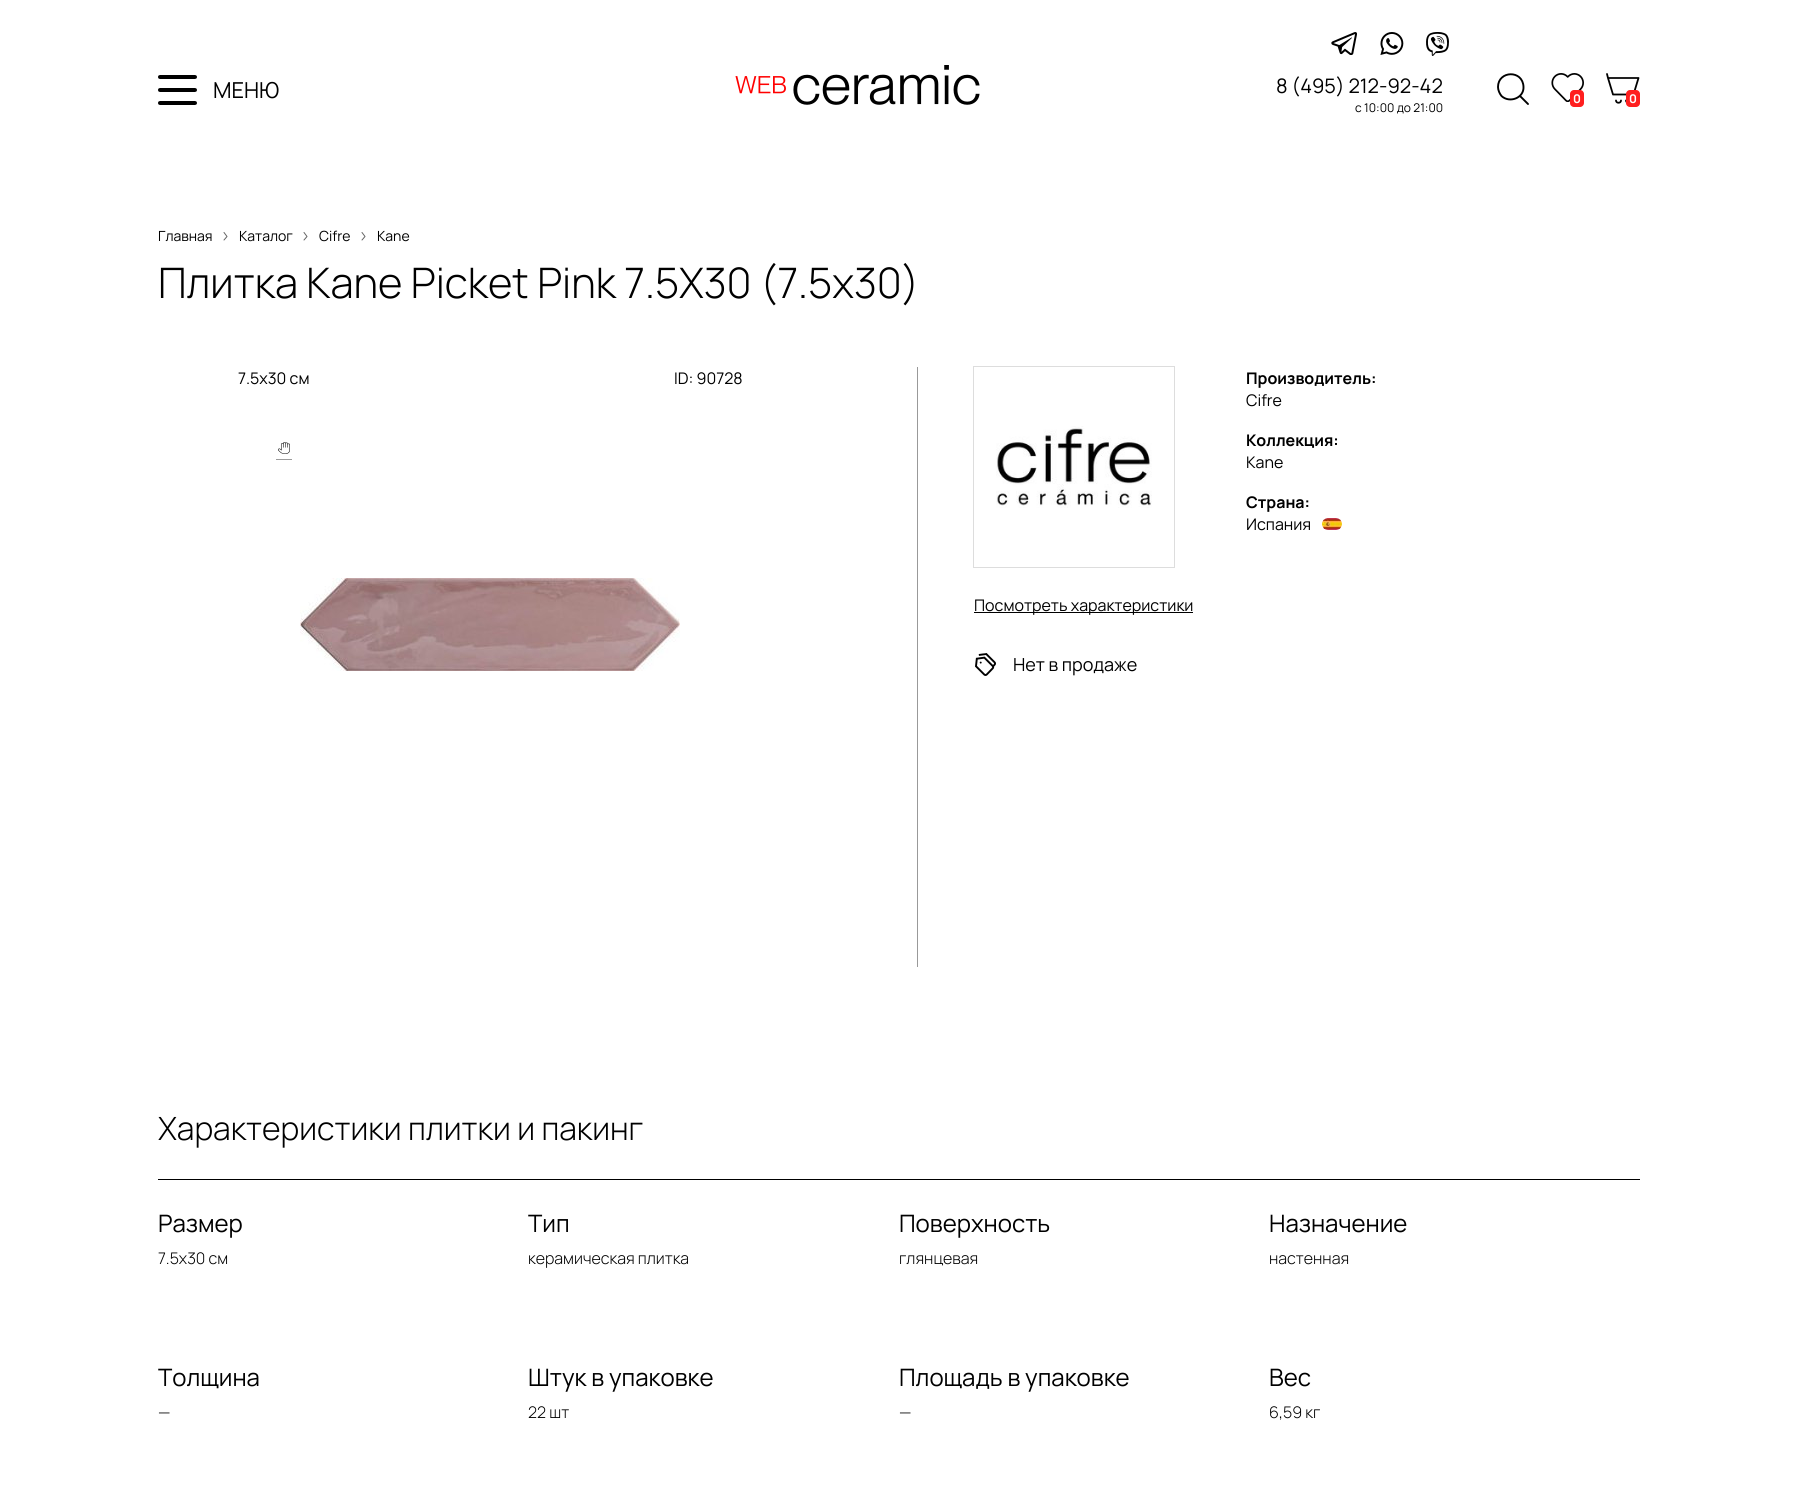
import math
import cairo

surface = cairo.ImageSurface(cairo.FORMAT_RGB24, 1797, 1500)
ctx = cairo.Context(surface)
options = cairo.FontOptions()
options.set_hint_metrics(cairo.HINT_METRICS_OFF)
options.set_hint_style(cairo.HINT_STYLE_NONE)
ctx.set_font_options(options)
ctx.set_miter_limit(4)


def set_color(code):
    ctx.set_source_rgb(*(v / 255 for v in bytes.fromhex(code[-6:])))


def draw_text(x, y, s, family, size, color, bold=False, italic=False):
    ctx.select_font_face(family, cairo.FONT_SLANT_ITALIC if italic else cairo.FONT_SLANT_NORMAL, cairo.FONT_WEIGHT_BOLD if bold else cairo.FONT_WEIGHT_NORMAL)
    ctx.set_font_size(size)
    set_color(color)
    ctx.move_to(x, y)
    ctx.show_text(s)


def fill_rect(x, y, w, h, color):
    set_color(color)
    ctx.rectangle(x, y, w, h)
    ctx.fill()


def rounded_rect(x, y, w, h, r):
    ctx.new_sub_path()
    for i, (u, v) in enumerate([(x + w - r, y + h - r), (x + r, y + h - r), (x + r, y + r), (x + w - r, y + r)]):
        ctx.arc(u, v, r, i * math.pi / 2, (i + 1) * math.pi / 2)
    ctx.close_path()


def draw_image(path, x, y, w, h):
    ctx.save()
    ctx.set_source_surface(cairo.ImageSurface.create_from_png(path), x, y)
    ctx.rectangle(x, y, w, h)
    ctx.fill()
    ctx.restore()


set_color("#ffffff")
ctx.paint()
draw_image("assets/img1.png", 1331, 32, 26, 23)
draw_image("assets/img2.png", 1380, 32, 24, 23)
draw_image("assets/img3.png", 1426, 32, 23, 24)
draw_image("assets/img4.png", 158, 75, 39, 30)
draw_text(213, 98, "МЕНЮ", "Manrope", 22, "#000000")
draw_image("assets/img5.png", 735, 65, 245, 40)
draw_text(1276, 93, "8 (495) 212-92-42", "Manrope", 20, "#000000")
draw_text(1355, 112, "с 10:00 до 21:00", "Manrope", 12, "#000000")
ctx.new_path()
ctx.move_to(1520.5, 96.5)
ctx.line_to(1528, 104)
ctx.move_to(1498, 87)
ctx.curve_to(1498, 90, 1499.5, 93.5, 1501.5, 96)
ctx.curve_to(1509.5, 103.5, 1524, 98, 1523.5, 87)
ctx.curve_to(1523, 69.5, 1498, 70.5, 1498, 87)
ctx.close_path()
ctx.set_line_width(1.9)
ctx.set_line_cap(cairo.LINE_CAP_ROUND)
ctx.set_line_join(cairo.LINE_JOIN_ROUND)
ctx.stroke()
draw_image("assets/img6.png", 1551, 73, 33, 29)
set_color("#ff1f1f")
rounded_rect(1570, 90, 14, 17, 4)
ctx.fill()
draw_text(1573, 103, "0", "Manrope", 12, "#ffffff", bold=True)
ctx.new_path()
ctx.move_to(1608, 78)
ctx.line_to(1638.5, 78)
ctx.line_to(1633.5, 94.5)
ctx.line_to(1613, 94.5)
ctx.close_path()
ctx.move_to(1608, 78)
ctx.line_to(1607, 74)
ctx.move_to(1621, 100.5)
ctx.curve_to(1621, 103.5, 1616, 103.5, 1616, 100.5)
ctx.move_to(1630.5, 100.5)
ctx.curve_to(1630.5, 103.5, 1626, 103.5, 1626, 100.5)
set_color("#000000")
ctx.set_line_width(1.8)
ctx.stroke()
set_color("#ff1f1f")
rounded_rect(1626, 90, 14, 17, 4)
ctx.fill()
draw_text(1629, 103, "0", "Manrope", 12, "#ffffff", bold=True)
draw_text(158, 241, "Главная", "Manrope", 14, "#000000")
ctx.new_path()
ctx.move_to(224, 232.5)
ctx.line_to(227, 236.5)
ctx.line_to(224, 240)
set_color("#666666")
ctx.set_line_width(1)
ctx.stroke()
draw_text(239, 241, "Каталог", "Manrope", 14, "#000000")
ctx.new_path()
ctx.move_to(304, 232.5)
ctx.line_to(307, 236.5)
ctx.line_to(304, 240)
set_color("#666666")
ctx.stroke()
draw_text(319, 241, "Cifre", "Manrope", 14, "#000000")
ctx.new_path()
ctx.move_to(362, 232.5)
ctx.line_to(365, 236.5)
ctx.line_to(362, 240)
set_color("#666666")
ctx.stroke()
draw_text(377, 241, "Kane", "Manrope", 14, "#000000")
draw_text(158, 298, "Плитка Kane Picket Pink 7.5X30 (7.5x30)", "Manrope Light", 42, "#000000")
fill_rect(917, 367, 1, 600, "#999999")
draw_text(238, 384, "7.5x30 см", "Manrope", 16, "#000000")
draw_text(674, 384, "ID: 90728", "Manrope", 16, "#000000")
draw_image("assets/img7.png", 278, 442, 12, 12)
fill_rect(276, 459, 16, 1, "#9b9b9b")
draw_image("assets/img8.png", 300, 578, 380, 93)
draw_image("assets/img9.png", 996, 426, 156, 82)
ctx.rectangle(973.5, 366.5, 201, 201)
set_color("#dddddd")
ctx.set_line_cap(cairo.LINE_CAP_BUTT)
ctx.set_line_join(cairo.LINE_JOIN_MITER)
ctx.stroke()
draw_text(1246, 384, "Производитель:", "Manrope", 16, "#000000", bold=True)
draw_text(1246, 406, "Cifre", "Manrope", 16, "#000000")
draw_text(1246, 446, "Коллекция:", "Manrope", 16, "#000000", bold=True)
draw_text(1246, 468, "Kane", "Manrope", 16, "#000000")
draw_text(1246, 508, "Страна:", "Manrope", 16, "#000000", bold=True)
draw_text(1246, 530, "Испания", "Manrope", 16, "#000000")
draw_image("assets/img10.png", 1322, 518, 20, 12)
fill_rect(974, 612, 219, 1, "#000000")
draw_text(974, 611, "Посмотреть характеристики", "Manrope", 16, "#000000")
draw_image("assets/img11.png", 975, 653, 21, 23)
draw_text(1013, 671, "Нет в продаже", "Manrope", 18, "#000000")
fill_rect(158, 1179, 1482, 1, "#000000")
draw_text(158, 1140, "Характеристики плитки и пакинг", "Manrope Light", 32, "#000000")
draw_text(158, 1232, "Размер", "Manrope", 24, "#000000")
draw_text(158, 1264, "7.5x30 см", "Manrope Light", 16, "#000000")
draw_text(528, 1232, "Тип", "Manrope", 24, "#000000")
draw_text(528, 1264, "керамическая плитка", "Manrope Light", 16, "#000000")
draw_text(899, 1232, "Поверхность", "Manrope", 24, "#000000")
draw_text(899, 1264, "глянцевая", "Manrope Light", 16, "#000000")
draw_text(1269, 1232, "Назначение", "Manrope", 24, "#000000")
draw_text(1269, 1264, "настенная", "Manrope Light", 16, "#000000")
draw_text(158, 1386, "Толщина", "Manrope", 24, "#000000")
draw_text(158, 1418, "—", "Manrope Light", 16, "#000000")
draw_text(528, 1386, "Штук в упаковке", "Manrope", 24, "#000000")
draw_text(528, 1418, "22 шт", "Manrope Light", 16, "#000000")
draw_text(899, 1386, "Площадь в упаковке", "Manrope", 24, "#000000")
draw_text(899, 1418, "—", "Manrope Light", 16, "#000000")
draw_text(1269, 1386, "Вес", "Manrope", 24, "#000000")
draw_text(1269, 1418, "6,59 кг", "Manrope Light", 16, "#000000")
surface.write_to_png("output.png")
